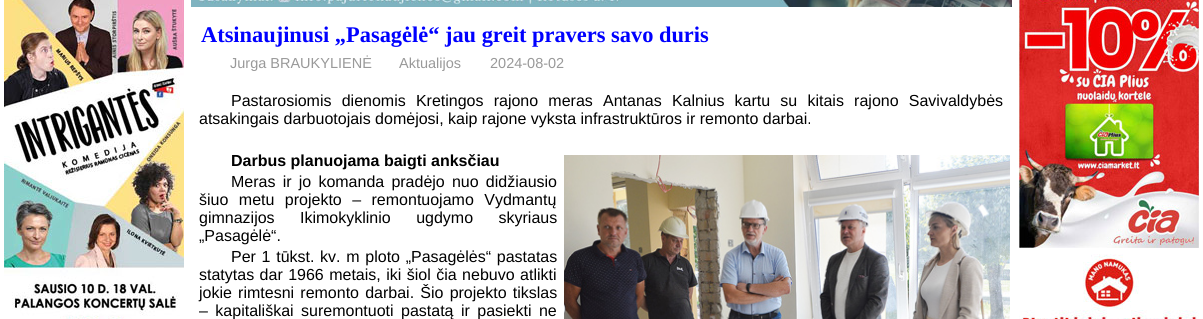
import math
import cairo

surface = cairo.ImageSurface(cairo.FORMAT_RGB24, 1203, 319)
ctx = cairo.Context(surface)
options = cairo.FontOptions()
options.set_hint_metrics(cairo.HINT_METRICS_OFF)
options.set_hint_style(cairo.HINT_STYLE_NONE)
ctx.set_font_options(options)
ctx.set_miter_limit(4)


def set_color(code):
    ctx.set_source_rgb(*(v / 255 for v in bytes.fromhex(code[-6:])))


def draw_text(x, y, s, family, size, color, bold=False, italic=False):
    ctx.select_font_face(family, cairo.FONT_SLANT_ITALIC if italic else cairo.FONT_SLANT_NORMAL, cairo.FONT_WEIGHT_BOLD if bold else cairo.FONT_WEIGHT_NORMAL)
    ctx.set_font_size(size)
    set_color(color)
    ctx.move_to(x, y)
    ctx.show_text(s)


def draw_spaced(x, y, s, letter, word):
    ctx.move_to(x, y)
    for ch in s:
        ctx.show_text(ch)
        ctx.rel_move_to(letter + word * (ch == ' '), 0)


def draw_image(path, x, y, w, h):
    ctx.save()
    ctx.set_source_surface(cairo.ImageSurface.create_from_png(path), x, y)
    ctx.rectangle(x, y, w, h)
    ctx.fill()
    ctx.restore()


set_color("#ffffff")
ctx.paint()
draw_image("assets/img1.png", 4, 0, 180, 319)
draw_image("assets/img2.png", 191, 0, 821, 7)
draw_text(201, 42, "Atsinaujinusi „Pasagėlė“ jau greit pravers savo duris", "Liberation Serif", 22.4, "#0000ff", bold=True)
draw_text(230, 68, "Jurga BRAUKYLIENĖ", "Liberation Sans", 14.5, "#999999")
draw_text(399, 68, "Aktualijos", "Liberation Sans", 14.5, "#999999")
draw_text(490, 68, "2024-08-02", "Liberation Sans", 14.5, "#999999")
ctx.set_font_size(16)
set_color("#000000")
draw_spaced(231, 106, "Pastarosiomis dienomis Kretingos rajono meras Antanas Kalnius kartu su kitais rajono Savivaldybės", 0, 5.75)
draw_text(199, 124, "atsakingais darbuotojais domėjosi, kaip rajone vyksta infrastruktūros ir remonto darbai.", "Liberation Sans", 16, "#000000")
draw_text(231, 166, "Darbus planuojama baigti anksčiau", "Liberation Sans", 16, "#000000", bold=True)
draw_image("assets/img3.png", 564, 155, 446, 164)
ctx.select_font_face("Liberation Sans")
draw_spaced(231, 187, "Meras ir jo komanda pradėjo nuo didžiausio", 0, 2.75)
draw_spaced(199, 205, "šiuo metu projekto – remontuojamo Vydmantų", 0, 6)
draw_spaced(199, 223, "gimnazijos Ikimokyklinio ugdymo skyriaus", 0, 21)
draw_text(199, 241, "„Pasagėlė“.", "Liberation Sans", 16, "#000000")
draw_spaced(231, 262, "Per 1 tūkst. kv. m ploto „Pasagėlės“ pastatas", 0, 1.25)
draw_spaced(199, 280, "statytas dar 1966 metais, iki šiol čia nebuvo atlikti", 0, 1)
draw_spaced(199, 298, "jokie rimtesni remonto darbai. Šio projekto tikslas", 0, 1.75)
draw_spaced(199, 316, "– kapitališkai suremontuoti pastatą ir pasiekti ne", 0, 3)
draw_image("assets/img4.png", 1019, 0, 180, 248)
draw_image("assets/img5.png", 1019, 254, 180, 65)
surface.write_to_png("output.png")
